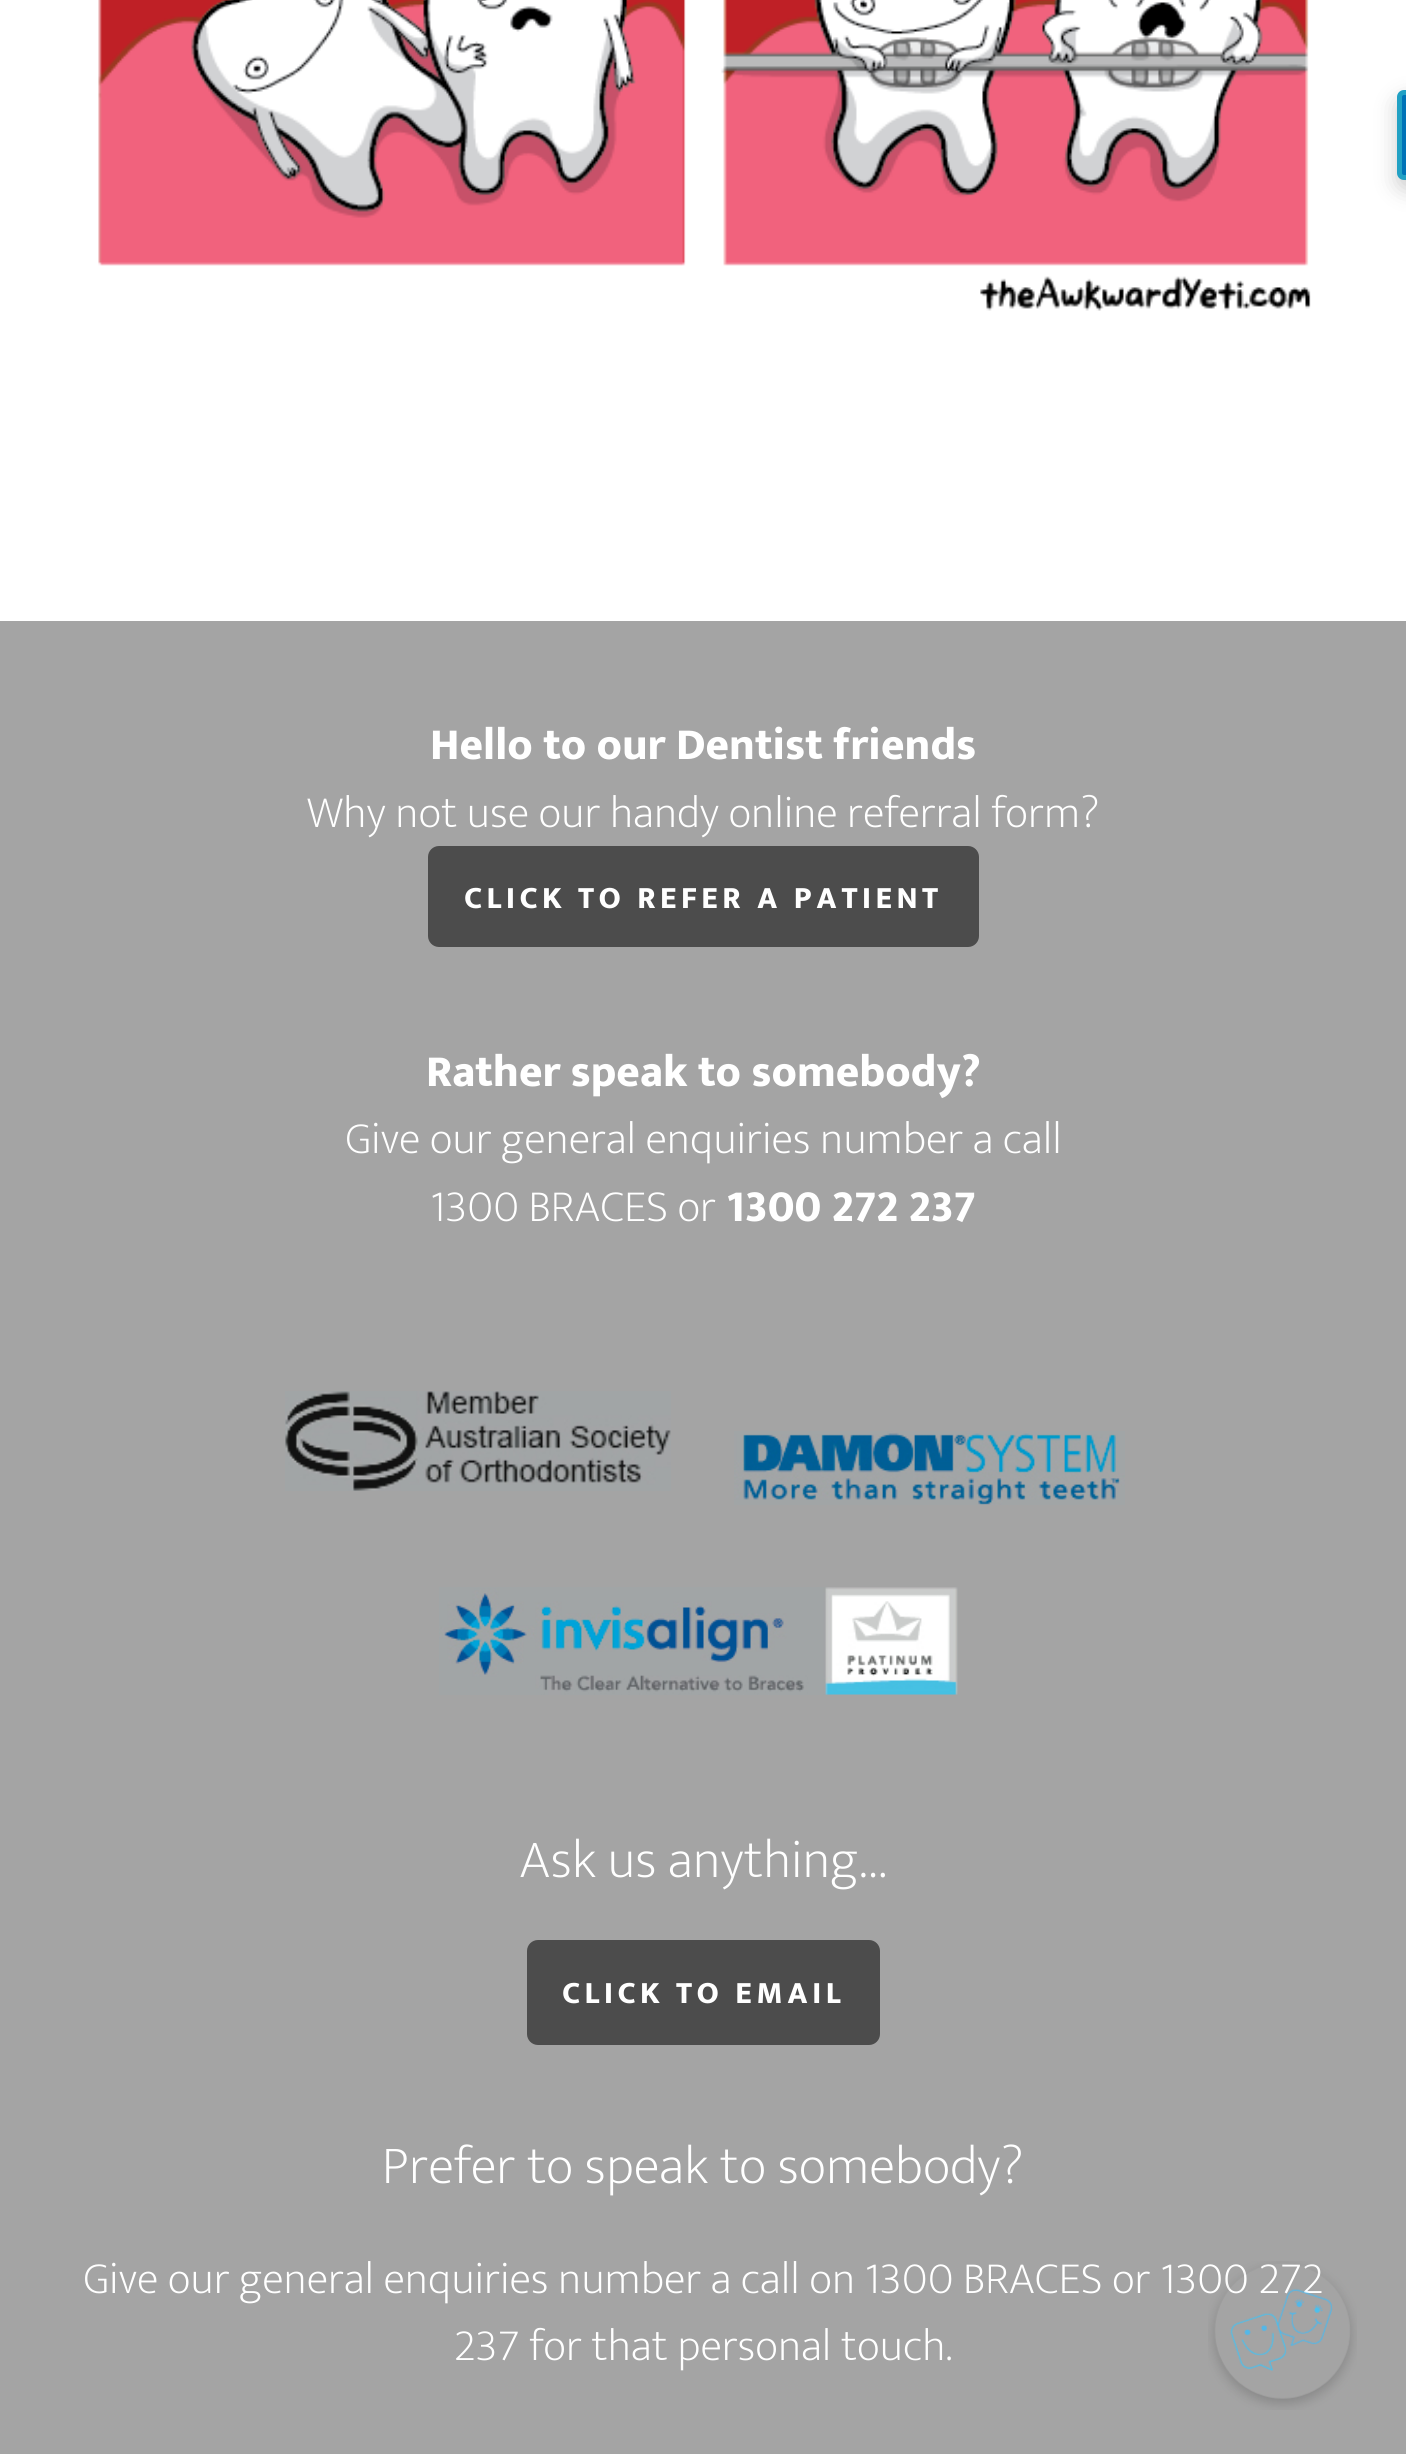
import math
import cairo

surface = cairo.ImageSurface(cairo.FORMAT_RGB24, 1406, 2454)
ctx = cairo.Context(surface)
options = cairo.FontOptions()
options.set_hint_metrics(cairo.HINT_METRICS_OFF)
options.set_hint_style(cairo.HINT_STYLE_NONE)
ctx.set_font_options(options)
ctx.set_miter_limit(4)


def set_color(code):
    ctx.set_source_rgb(*(v / 255 for v in bytes.fromhex(code[-6:])))


def draw_text(x, y, s, family, size, color, bold=False, italic=False):
    ctx.select_font_face(family, cairo.FONT_SLANT_ITALIC if italic else cairo.FONT_SLANT_NORMAL, cairo.FONT_WEIGHT_BOLD if bold else cairo.FONT_WEIGHT_NORMAL)
    ctx.set_font_size(size)
    set_color(color)
    ctx.move_to(x, y)
    ctx.show_text(s)


def draw_spaced(x, y, s, letter, word):
    ctx.move_to(x, y)
    for ch in s:
        ctx.show_text(ch)
        ctx.rel_move_to(letter + word * (ch == ' '), 0)


def fill_rect(x, y, w, h, color):
    set_color(color)
    ctx.rectangle(x, y, w, h)
    ctx.fill()


def rounded_rect(x, y, w, h, r):
    ctx.new_sub_path()
    for i, (u, v) in enumerate([(x + w - r, y + h - r), (x + r, y + h - r), (x + r, y + r), (x + w - r, y + r)]):
        ctx.arc(u, v, r, i * math.pi / 2, (i + 1) * math.pi / 2)
    ctx.close_path()


def draw_shadow(x, y, w, h, r, blur, alpha):
    ctx.push_group_with_content(cairo.CONTENT_ALPHA)
    ctx.set_operator(cairo.OPERATOR_SOURCE)
    for i in range(15, -16, -2):
        e = blur * i / 6
        if min(w, h) + 2 * e > 0:
            ctx.set_source_rgba(0, 0, 0, alpha * math.erfc((i - 1) / 8.5) / 2)
            rounded_rect(x - e, y - e, w + 2 * e, h + 2 * e, max(0, min(r + e + blur * .6, min(w, h) / 2 + e)))
            ctx.fill()
    ctx.mask(ctx.pop_group())


def draw_image(path, x, y, w, h):
    ctx.save()
    ctx.set_source_surface(cairo.ImageSurface.create_from_png(path), x, y)
    ctx.rectangle(x, y, w, h)
    ctx.fill()
    ctx.restore()


set_color("#ffffff")
ctx.paint()
set_color("#000000")
draw_shadow(1397, 99, 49, 90, 7, 11, 0.2)
set_color("#0073b7")
ctx.new_path()
ctx.move_to(1404, 92.5)
ctx.line_to(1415.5, 92.5)
ctx.line_to(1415.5, 177.5)
ctx.line_to(1404, 177.5)
ctx.curve_to(1401.5, 177.5, 1399.5, 175.5, 1399.5, 173)
ctx.line_to(1399.5, 97)
ctx.curve_to(1399.5, 94.5, 1401.5, 92.5, 1404, 92.5)
ctx.close_path()
ctx.fill_preserve()
set_color("#22a1c4")
ctx.set_line_width(5)
ctx.stroke()
draw_image("assets/img1.png", 98, 0, 1213, 311)
fill_rect(0, 621, 1406, 1833, "#a4a4a4")
draw_text(430, 759, "Hello to our Dentist friends", "Ek Mukta ExtraBold", 45, "#ffffff")
draw_text(307, 827, "Why not use our handy online referral form?", "Ek Mukta ExtraLight", 45, "#ffffff")
set_color("#4c4c4c")
rounded_rect(430.5, 848.5, 546, 96, 8.5)
ctx.fill_preserve()
ctx.stroke()
ctx.select_font_face("Ek Mukta ExtraBold")
ctx.set_font_size(31.5)
set_color("#ffffff")
draw_spaced(464, 908, "CLICK TO REFER A PATIENT", 4.5, 0)
draw_text(426, 1086, "Rather speak to somebody?", "Ek Mukta ExtraBold", 45, "#ffffff")
draw_text(345, 1153, "Give our general enquiries number a call", "Ek Mukta ExtraLight", 45, "#ffffff")
draw_text(430, 1221, "1300 BRACES or", "Ek Mukta ExtraLight", 45, "#ffffff")
draw_text(726, 1221, "1300 272 237", "Ek Mukta ExtraBold", 45, "#ffffff")
draw_image("assets/img2.png", 285, 1391, 386, 100)
draw_image("assets/img3.png", 734, 1431, 391, 74)
draw_image("assets/img4.png", 439, 1587, 519, 108)
draw_text(519, 1877, "Ask us anything…", "Ek Mukta ExtraLight", 54, "#ffffff")
set_color("#4c4c4c")
rounded_rect(529.5, 1942.5, 348, 100, 8.5)
ctx.fill_preserve()
ctx.stroke()
ctx.select_font_face("Ek Mukta ExtraBold")
ctx.set_font_size(31.5)
set_color("#ffffff")
draw_spaced(562, 2003, "CLICK TO EMAIL", 4.5, 0)
draw_text(382, 2183, "Prefer to speak to somebody?", "Ek Mukta ExtraLight", 54, "#ffffff")
draw_text(83, 2293, "Give our general enquiries number a call on 1300 BRACES or 1300 272", "Ek Mukta ExtraLight", 45, "#ffffff")
draw_text(454, 2360, "237 for that personal touch.", "Ek Mukta ExtraLight", 45, "#ffffff")
draw_image("assets/img5.png", 1208, 2261, 149, 149)
surface.write_to_png("output.png")
